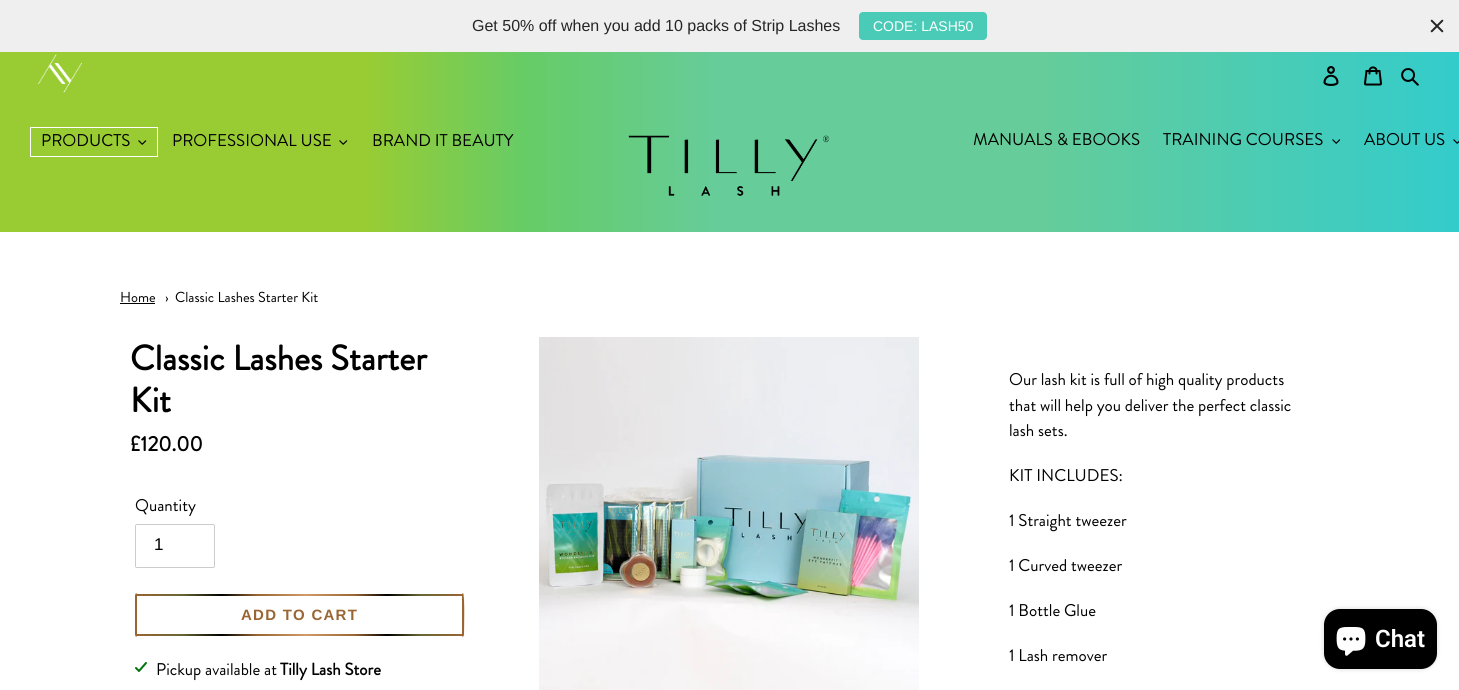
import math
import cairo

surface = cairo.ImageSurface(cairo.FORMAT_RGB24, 1459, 690)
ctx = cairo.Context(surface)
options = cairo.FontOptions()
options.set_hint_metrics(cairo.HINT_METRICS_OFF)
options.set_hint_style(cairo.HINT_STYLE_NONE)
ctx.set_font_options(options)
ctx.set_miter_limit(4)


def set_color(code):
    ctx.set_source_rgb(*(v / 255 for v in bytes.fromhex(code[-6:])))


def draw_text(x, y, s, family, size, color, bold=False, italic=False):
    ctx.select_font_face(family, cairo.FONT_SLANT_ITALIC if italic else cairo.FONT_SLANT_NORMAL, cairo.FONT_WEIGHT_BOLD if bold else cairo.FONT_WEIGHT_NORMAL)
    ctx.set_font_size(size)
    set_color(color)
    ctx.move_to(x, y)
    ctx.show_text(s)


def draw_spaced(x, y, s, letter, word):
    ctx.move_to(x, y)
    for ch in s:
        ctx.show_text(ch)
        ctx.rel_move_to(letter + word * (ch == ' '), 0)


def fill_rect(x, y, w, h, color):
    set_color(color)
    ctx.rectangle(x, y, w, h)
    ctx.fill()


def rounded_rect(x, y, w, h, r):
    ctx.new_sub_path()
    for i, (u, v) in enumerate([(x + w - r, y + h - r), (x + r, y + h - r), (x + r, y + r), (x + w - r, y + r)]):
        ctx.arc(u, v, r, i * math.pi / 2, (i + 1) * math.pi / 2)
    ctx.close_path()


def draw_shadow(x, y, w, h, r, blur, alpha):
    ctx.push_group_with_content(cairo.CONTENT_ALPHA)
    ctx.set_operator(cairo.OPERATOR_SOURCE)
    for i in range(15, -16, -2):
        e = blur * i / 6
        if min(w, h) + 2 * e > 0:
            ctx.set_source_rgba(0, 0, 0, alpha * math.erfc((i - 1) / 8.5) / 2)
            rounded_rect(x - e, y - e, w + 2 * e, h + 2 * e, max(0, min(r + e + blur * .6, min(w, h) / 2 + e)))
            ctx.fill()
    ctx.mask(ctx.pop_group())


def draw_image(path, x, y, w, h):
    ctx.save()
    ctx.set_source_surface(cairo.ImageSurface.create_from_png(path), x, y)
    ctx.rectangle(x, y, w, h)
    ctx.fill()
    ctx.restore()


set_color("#ffffff")
ctx.paint()
gradient = cairo.LinearGradient(0, 116, 1459, 116)
gradient.add_color_stop_rgba(0, 0.6, 0.8, 0.2, 1)
gradient.add_color_stop_rgba(0.25, 0.6, 0.8, 0.2, 1)
gradient.add_color_stop_rgba(0.36, 0.4, 0.8, 0.4, 1)
gradient.add_color_stop_rgba(0.49, 0.4, 0.8, 0.6, 1)
gradient.add_color_stop_rgba(0.71, 0.4, 0.8, 0.6, 1)
gradient.add_color_stop_rgba(1, 0.2, 0.8, 0.8, 1)
ctx.set_source(gradient)
ctx.rectangle(0, 52, 1459, 180)
ctx.fill()
fill_rect(0, 0, 1459, 52, "#efefef")
draw_text(472, 31, "Get 50% off when you add 10 packs of Strip Lashes", "Liberation Sans", 16, "#262525")
set_color("#49cbb7")
rounded_rect(859, 12, 128, 28, 4)
ctx.fill()
draw_text(873, 31, "CODE: LASH50", "Liberation Sans", 14, "#ffffff")
draw_image("assets/img1.png", 1430, 19, 14, 14)
draw_image("assets/img2.png", 38, 54, 44, 39)
draw_image("assets/img3.png", 1323, 66, 16, 20)
draw_image("assets/img4.png", 1364, 66, 18, 20)
draw_image("assets/img5.png", 1401, 68, 18, 18)
ctx.rectangle(30.5, 127.5, 127, 29)
ctx.set_line_width(1)
ctx.stroke()
draw_text(41, 146, "PRODUCTS", "Brandon Grotesque", 17, "#000000")
draw_image("assets/img6.png", 138, 140, 9, 5)
draw_text(172, 146, "PROFESSIONAL USE", "Brandon Grotesque", 17, "#000000")
draw_image("assets/img6.png", 339, 140, 9, 5)
draw_text(372, 146, "BRAND IT BEAUTY", "Brandon Grotesque", 17, "#000000")
draw_image("assets/img7.png", 628, 135, 202, 61)
draw_text(973, 145, "MANUALS & EBOOKS", "Brandon Grotesque", 17, "#000000")
draw_text(1163, 145, "TRAINING COURSES", "Brandon Grotesque", 17, "#000000")
draw_image("assets/img8.png", 1332, 139, 8, 5)
draw_text(1364, 145, "ABOUT US", "Brandon Grotesque", 17, "#000000")
draw_image("assets/img9.png", 1453, 139, 6, 5)
draw_text(120, 302, "Home", "Brandon Grotesque", 14.5, "#000000")
fill_rect(120, 303, 35, 1, "#000000")
draw_text(165, 302, "›", "Brandon Grotesque", 14.5, "#000000")
draw_text(175, 302, "Classic Lashes Starter Kit", "Brandon Grotesque", 14.5, "#000000")
draw_text(130, 370, "Classic Lashes Starter", "Brandon Grotesque", 35, "#000000", bold=True)
draw_text(130, 412, "Kit", "Brandon Grotesque", 35, "#000000", bold=True)
draw_text(130, 451, "£120.00", "Brandon Grotesque", 21, "#000000", bold=True)
draw_text(135, 511, "Quantity", "Brandon Grotesque", 17, "#000000")
rounded_rect(135.5, 524.5, 79, 43, 1.5)
set_color("#cccccc")
ctx.stroke()
draw_text(154, 550, "1", "Liberation Sans", 17, "#000000")
set_color("#996633")
ctx.new_path()
ctx.move_to(464, 635)
ctx.curve_to(464, 630, 465, 595, 463, 593)
ctx.line_to(462, 594)
ctx.line_to(462, 636)
ctx.line_to(463, 637)
ctx.close_path()
ctx.fill()
ctx.new_path()
ctx.move_to(137, 594)
ctx.line_to(136, 593)
ctx.line_to(135, 595)
ctx.line_to(135, 635)
ctx.line_to(136, 637)
ctx.line_to(137, 636)
ctx.close_path()
ctx.fill()
gradient = cairo.LinearGradient(137, 595, 462, 595)
gradient.add_color_stop_rgba(0, 0.6, 0.4, 0.2, 1)
gradient.add_color_stop_rgba(0.14, 0.4, 0.4, 0.2, 1)
gradient.add_color_stop_rgba(0.26, 0, 0, 0, 1)
gradient.add_color_stop_rgba(0.37, 0.6, 0.4, 0.2, 1)
gradient.add_color_stop_rgba(0.52, 0.82, 0.608, 0.408, 1)
gradient.add_color_stop_rgba(0.67, 0.6, 0.4, 0.2, 1)
gradient.add_color_stop_rgba(0.77, 0, 0, 0, 1)
gradient.add_color_stop_rgba(0.87, 0.4, 0.4, 0.2, 1)
gradient.add_color_stop_rgba(1, 0.6, 0.4, 0.2, 1)
ctx.set_source(gradient)
ctx.rectangle(137, 594, 325, 2)
ctx.fill()
ctx.select_font_face("Liberation Sans", cairo.FONT_SLANT_NORMAL, cairo.FONT_WEIGHT_BOLD)
ctx.set_font_size(15)
set_color("#996633")
draw_spaced(241, 620, "ADD TO CART", 1.25, 0)
gradient = cairo.LinearGradient(137, 635, 462, 635)
gradient.add_color_stop_rgba(0, 0.6, 0.4, 0.2, 1)
gradient.add_color_stop_rgba(0.14, 0.4, 0.4, 0.2, 1)
gradient.add_color_stop_rgba(0.26, 0, 0, 0, 1)
gradient.add_color_stop_rgba(0.37, 0.6, 0.4, 0.2, 1)
gradient.add_color_stop_rgba(0.52, 0.82, 0.608, 0.408, 1)
gradient.add_color_stop_rgba(0.67, 0.6, 0.4, 0.2, 1)
gradient.add_color_stop_rgba(0.77, 0, 0, 0, 1)
gradient.add_color_stop_rgba(0.87, 0.4, 0.4, 0.2, 1)
gradient.add_color_stop_rgba(1, 0.6, 0.4, 0.2, 1)
ctx.set_source(gradient)
ctx.rectangle(137, 634, 325, 2)
ctx.fill()
draw_image("assets/img10.png", 135, 662, 12, 10)
draw_text(156, 675, "Pickup available at", "Brandon Grotesque", 17, "#000000")
draw_text(280, 675, "Tilly Lash Store", "Brandon Grotesque", 17, "#000000", bold=True)
draw_image("assets/img11.png", 539, 337, 380, 353)
draw_text(1009, 385, "Our lash kit is full of high quality products", "Brandon Grotesque", 17, "#000000")
draw_text(1009, 411, "that will help you deliver the perfect classic", "Brandon Grotesque", 17, "#000000")
draw_text(1009, 436, "lash sets.", "Brandon Grotesque", 17, "#000000")
draw_text(1009, 481, "KIT INCLUDES:", "Brandon Grotesque", 17, "#000000")
draw_text(1009, 526, "1 Straight tweezer", "Brandon Grotesque", 17, "#000000")
draw_text(1009, 571, "1 Curved tweezer", "Brandon Grotesque", 17, "#000000")
draw_text(1009, 616, "1 Bottle Glue", "Brandon Grotesque", 17, "#000000")
draw_text(1009, 661, "1 Lash remover", "Brandon Grotesque", 17, "#000000")
set_color("#000000")
draw_shadow(1324, 609, 113, 60, 16, 2.5, 0.15)
set_color("#000000")
rounded_rect(1324, 609, 113, 60, 16)
ctx.fill()
draw_image("assets/img12.png", 1336, 627, 30, 29)
draw_text(1375, 647, "Chat", "Roboto SemiBold", 24, "#ffffff")
surface.write_to_png("output.png")
